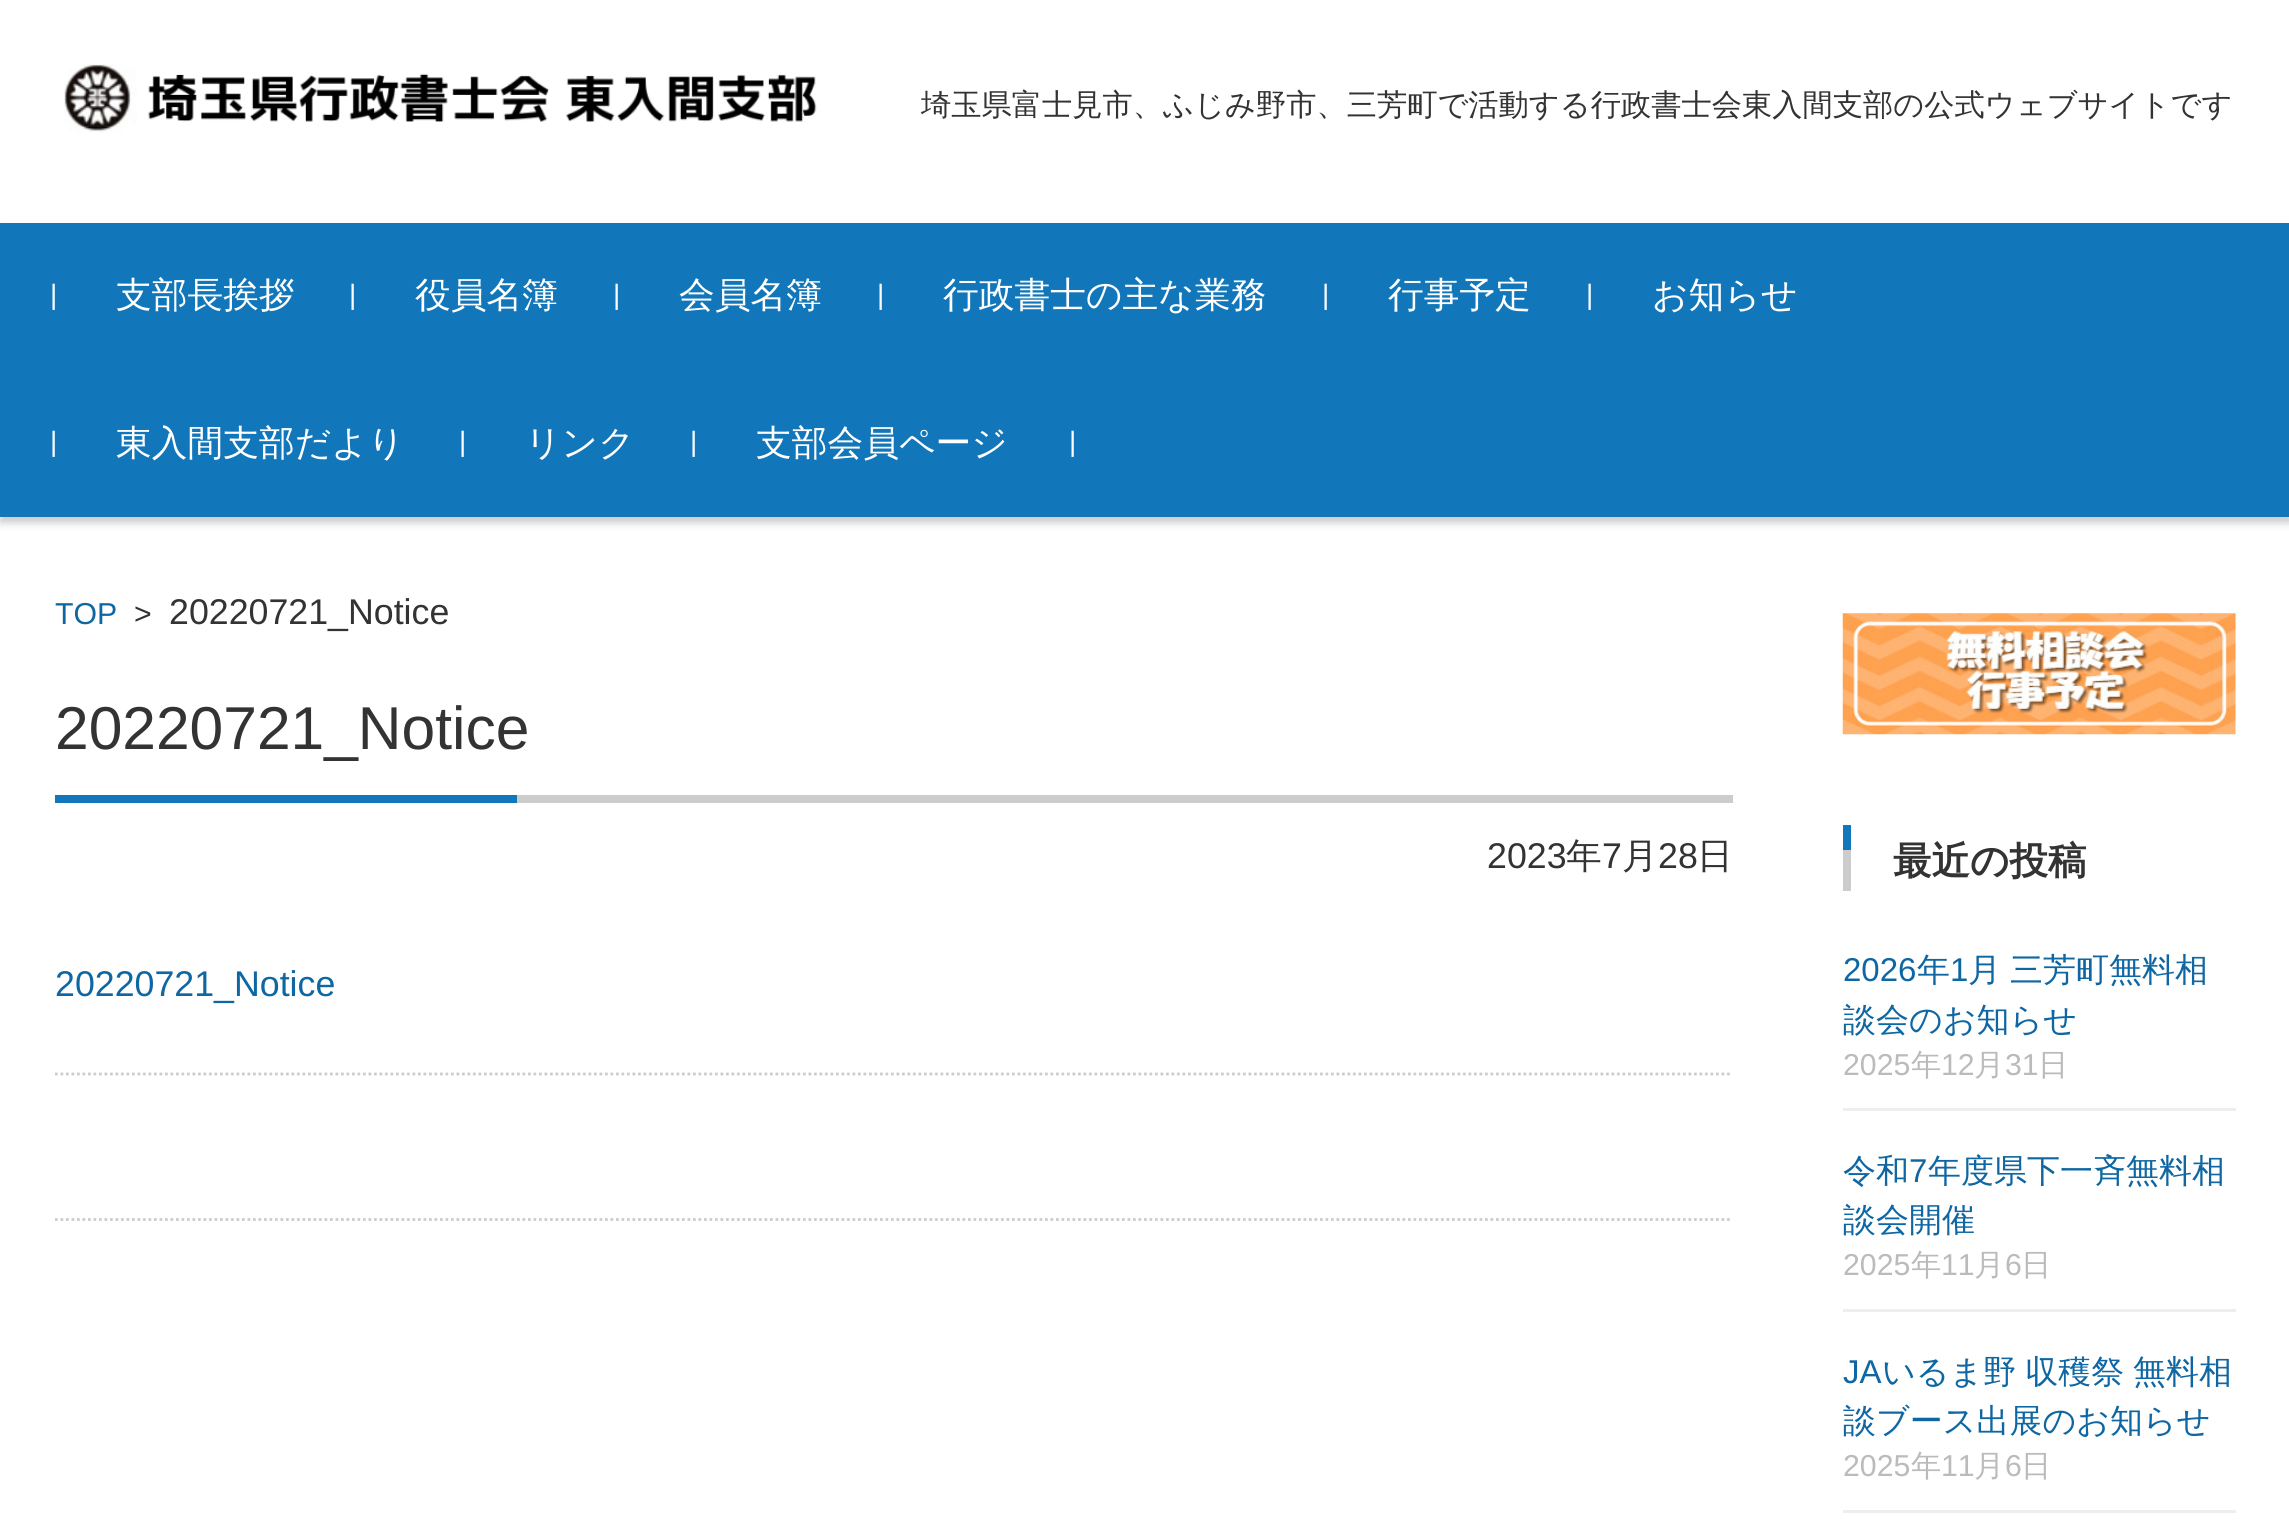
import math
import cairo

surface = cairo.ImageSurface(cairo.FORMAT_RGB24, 2289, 1538)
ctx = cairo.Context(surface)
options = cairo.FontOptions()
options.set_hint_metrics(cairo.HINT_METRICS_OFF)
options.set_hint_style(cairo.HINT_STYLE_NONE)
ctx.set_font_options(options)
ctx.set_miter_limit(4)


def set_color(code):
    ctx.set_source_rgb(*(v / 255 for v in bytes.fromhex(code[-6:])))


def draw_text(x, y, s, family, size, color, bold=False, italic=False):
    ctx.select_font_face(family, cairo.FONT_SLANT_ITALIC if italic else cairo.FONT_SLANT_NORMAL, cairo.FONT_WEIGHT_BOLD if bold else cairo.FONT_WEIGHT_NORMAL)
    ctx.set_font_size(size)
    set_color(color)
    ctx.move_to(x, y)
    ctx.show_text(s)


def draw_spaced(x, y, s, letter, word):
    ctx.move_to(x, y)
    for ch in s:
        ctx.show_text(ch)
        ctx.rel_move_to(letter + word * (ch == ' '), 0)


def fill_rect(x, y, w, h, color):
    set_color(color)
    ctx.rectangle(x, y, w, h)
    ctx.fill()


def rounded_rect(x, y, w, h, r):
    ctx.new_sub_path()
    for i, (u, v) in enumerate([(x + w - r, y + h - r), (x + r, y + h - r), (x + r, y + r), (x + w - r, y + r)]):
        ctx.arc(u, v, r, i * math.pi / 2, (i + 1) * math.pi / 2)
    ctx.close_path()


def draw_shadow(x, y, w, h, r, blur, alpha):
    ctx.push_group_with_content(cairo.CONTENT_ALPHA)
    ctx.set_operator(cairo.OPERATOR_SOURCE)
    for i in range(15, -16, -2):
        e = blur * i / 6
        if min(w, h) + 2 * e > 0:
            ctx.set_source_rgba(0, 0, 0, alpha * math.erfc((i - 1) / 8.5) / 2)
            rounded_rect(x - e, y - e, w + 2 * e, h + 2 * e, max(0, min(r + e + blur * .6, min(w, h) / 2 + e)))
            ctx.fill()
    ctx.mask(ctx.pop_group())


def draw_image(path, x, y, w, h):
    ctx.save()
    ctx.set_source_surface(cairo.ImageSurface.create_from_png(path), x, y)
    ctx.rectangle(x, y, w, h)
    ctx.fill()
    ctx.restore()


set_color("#ffffff")
ctx.paint()
draw_image("assets/img1.png", 64, 64, 753, 69)
draw_text(921, 115, "埼玉県富士見市、ふじみ野市、三芳町で活動する行政書士会東入間支部の公式ウェブサイトです", "WenQuanYi Zen Hei Medium", 30.25, "#333333")
set_color("#000000")
draw_shadow(0, 228, 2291, 295, 0, 4, 0.2)
fill_rect(0, 223, 2289, 294, "#1177ba")
draw_text(50, 304, "|", "Liberation Sans", 28, "#ffffff")
draw_text(116, 307, "支部長挨拶", "WenQuanYi Zen Hei Medium", 35.75, "#ffffff")
draw_text(349, 304, "|", "Liberation Sans", 28, "#ffffff")
draw_text(415, 307, "役員名簿", "WenQuanYi Zen Hei Medium", 35.75, "#ffffff")
draw_text(613, 304, "|", "Liberation Sans", 28, "#ffffff")
draw_text(679, 307, "会員名簿", "WenQuanYi Zen Hei Medium", 35.75, "#ffffff")
draw_text(877, 304, "|", "Liberation Sans", 28, "#ffffff")
draw_text(943, 307, "行政書士の主な業務", "WenQuanYi Zen Hei Medium", 35.75, "#ffffff")
draw_text(1322, 304, "|", "Liberation Sans", 28, "#ffffff")
draw_text(1388, 307, "行事予定", "WenQuanYi Zen Hei Medium", 35.75, "#ffffff")
draw_text(1586, 304, "|", "Liberation Sans", 28, "#ffffff")
draw_text(1652, 307, "お知らせ", "WenQuanYi Zen Hei Medium", 35.75, "#ffffff")
draw_text(50, 451, "|", "Liberation Sans", 28, "#ffffff")
draw_text(116, 455, "東入間支部だより", "WenQuanYi Zen Hei Medium", 35.75, "#ffffff")
draw_text(459, 451, "|", "Liberation Sans", 28, "#ffffff")
draw_text(525, 455, "リンク", "WenQuanYi Zen Hei Medium", 35.75, "#ffffff")
draw_text(690, 451, "|", "Liberation Sans", 28, "#ffffff")
draw_text(756, 455, "支部会員ページ", "WenQuanYi Zen Hei Medium", 35.75, "#ffffff")
draw_text(1069, 451, "|", "Liberation Sans", 28, "#ffffff")
draw_text(55, 624, "TOP", "Liberation Sans", 30.25, "#0e67a3")
draw_text(134, 624, ">", "Liberation Sans", 30.25, "#333333")
draw_text(169, 624, "20220721_Notice", "Liberation Sans", 35.75, "#333333")
fill_rect(517, 795, 1216, 8, "#cccccc")
draw_text(55, 749, "20220721_Notice", "Liberation Sans", 60.5, "#333333")
fill_rect(55, 795, 462, 8, "#1177ba")
draw_text(1487, 868, "2023", "Liberation Sans", 35.75, "#333333")
draw_text(1566, 868, "年", "WenQuanYi Zen Hei Medium", 35.75, "#333333")
draw_text(1602, 868, "7", "Liberation Sans", 35.75, "#333333")
draw_text(1622, 868, "月", "WenQuanYi Zen Hei Medium", 35.75, "#333333")
draw_text(1658, 868, "28", "Liberation Sans", 35.75, "#333333")
draw_text(1697, 868, "日", "WenQuanYi Zen Hei Medium", 35.75, "#333333")
draw_text(55, 996, "20220721_Notice", "Liberation Sans", 35.75, "#0e67a3")
ctx.new_path()
ctx.move_to(55, 1074)
ctx.line_to(1732.5, 1074)
set_color("#cccccc")
ctx.set_line_width(2.8)
ctx.set_dash([2.75, 2.75])
ctx.stroke()
ctx.new_path()
ctx.move_to(55, 1219.5)
ctx.line_to(1732.5, 1219.5)
ctx.stroke()
draw_image("assets/img2.png", 1842, 613, 394, 122)
fill_rect(1843, 850, 8, 41, "#cccccc")
fill_rect(1843, 825, 8, 25, "#1177ba")
draw_text(1893, 874, "最近の投稿", "WenQuanYi Zen Hei", 38.5, "#333333", bold=True)
fill_rect(1843, 1108, 393, 3, "#eeeeee")
draw_text(1843, 981, "2026", "Liberation Sans", 33, "#0e67a3")
draw_text(1917, 981, "年", "WenQuanYi Zen Hei Medium", 33, "#0e67a3")
draw_text(1950, 981, "1", "Liberation Sans", 33, "#0e67a3")
ctx.select_font_face("WenQuanYi Zen Hei Medium")
draw_spaced(1968, 981, "月 三芳町無料相", 0, -1)
draw_text(1843, 1031, "談会のお知らせ", "WenQuanYi Zen Hei Medium", 33, "#0e67a3")
draw_text(1843, 1075, "2025", "Liberation Sans", 30.25, "#bbbbbb")
draw_text(1911, 1075, "年", "WenQuanYi Zen Hei Medium", 30.25, "#bbbbbb")
draw_text(1941, 1075, "12", "Liberation Sans", 30.25, "#bbbbbb")
draw_text(1974, 1075, "月", "WenQuanYi Zen Hei Medium", 30.25, "#bbbbbb")
draw_text(2005, 1075, "31", "Liberation Sans", 30.25, "#bbbbbb")
draw_text(2038, 1075, "日", "WenQuanYi Zen Hei Medium", 30.25, "#bbbbbb")
fill_rect(1843, 1309, 393, 3, "#eeeeee")
draw_text(1843, 1182, "令和", "WenQuanYi Zen Hei Medium", 33, "#0e67a3")
draw_text(1909, 1182, "7", "Liberation Sans", 33, "#0e67a3")
draw_text(1928, 1182, "年度県下一斉無料相", "WenQuanYi Zen Hei Medium", 33, "#0e67a3")
draw_text(1843, 1231, "談会開催", "WenQuanYi Zen Hei Medium", 33, "#0e67a3")
draw_text(1843, 1275, "2025", "Liberation Sans", 30.25, "#bbbbbb")
draw_text(1911, 1275, "年", "WenQuanYi Zen Hei Medium", 30.25, "#bbbbbb")
draw_text(1941, 1275, "11", "Liberation Sans", 30.25, "#bbbbbb")
draw_text(1974, 1275, "月", "WenQuanYi Zen Hei Medium", 30.25, "#bbbbbb")
draw_text(2005, 1275, "6", "Liberation Sans", 30.25, "#bbbbbb")
draw_text(2021, 1275, "日", "WenQuanYi Zen Hei Medium", 30.25, "#bbbbbb")
fill_rect(1843, 1510, 393, 3, "#eeeeee")
draw_text(1843, 1383, "JA", "Liberation Sans", 33, "#0e67a3")
ctx.select_font_face("WenQuanYi Zen Hei Medium")
draw_spaced(1882, 1383, "いるま野 収穫祭 無料相", 0, -1)
draw_text(1843, 1432, "談ブース出展のお知らせ", "WenQuanYi Zen Hei Medium", 33, "#0e67a3")
draw_text(1843, 1476, "2025", "Liberation Sans", 30.25, "#bbbbbb")
draw_text(1911, 1476, "年", "WenQuanYi Zen Hei Medium", 30.25, "#bbbbbb")
draw_text(1941, 1476, "11", "Liberation Sans", 30.25, "#bbbbbb")
draw_text(1974, 1476, "月", "WenQuanYi Zen Hei Medium", 30.25, "#bbbbbb")
draw_text(2005, 1476, "6", "Liberation Sans", 30.25, "#bbbbbb")
draw_text(2021, 1476, "日", "WenQuanYi Zen Hei Medium", 30.25, "#bbbbbb")
surface.write_to_png("output.png")
